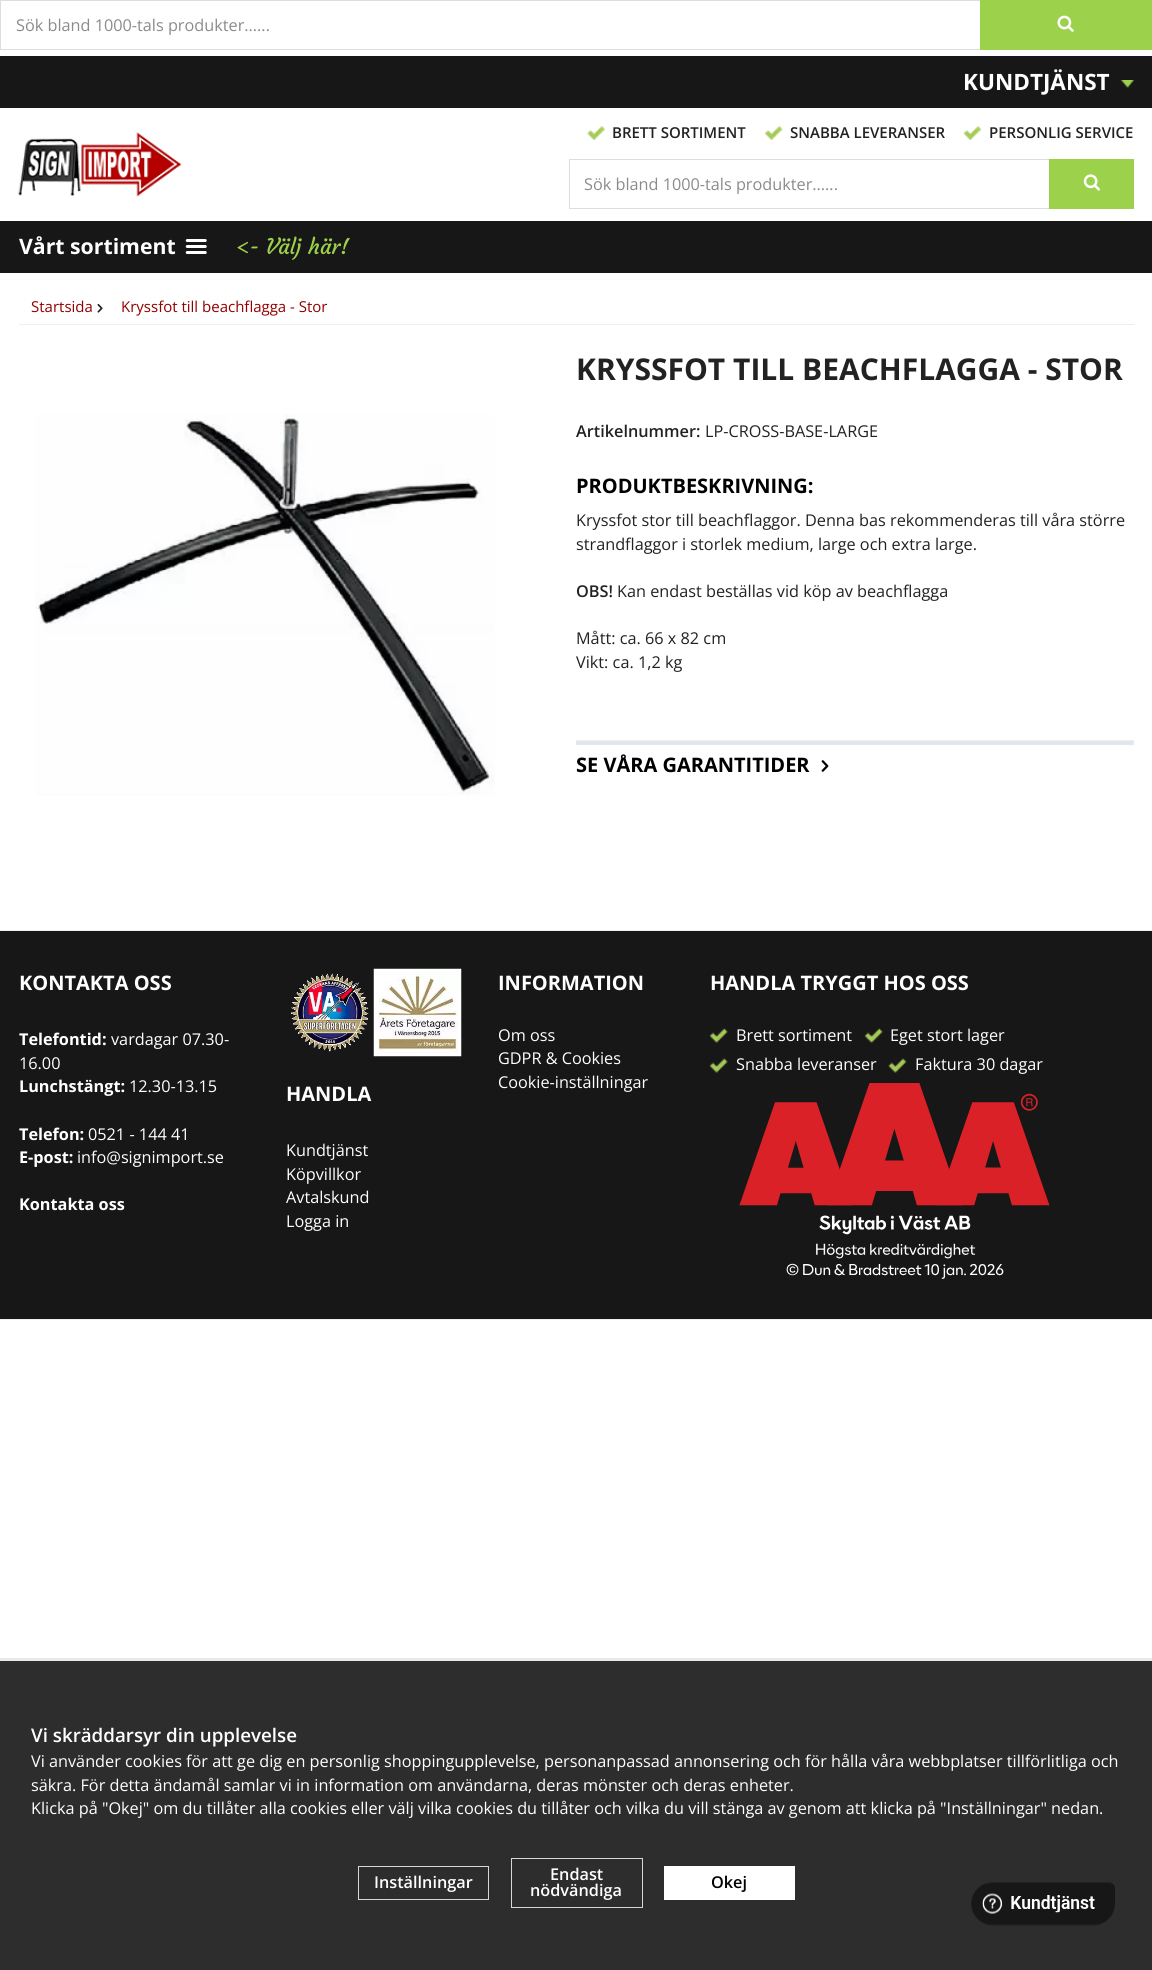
import math
import cairo

surface = cairo.ImageSurface(cairo.FORMAT_RGB24, 1152, 1970)
ctx = cairo.Context(surface)
options = cairo.FontOptions()
options.set_hint_metrics(cairo.HINT_METRICS_OFF)
options.set_hint_style(cairo.HINT_STYLE_NONE)
ctx.set_font_options(options)
ctx.set_miter_limit(4)


def set_color(code):
    ctx.set_source_rgb(*(v / 255 for v in bytes.fromhex(code[-6:])))


def draw_text(x, y, s, family, size, color, bold=False, italic=False):
    ctx.select_font_face(family, cairo.FONT_SLANT_ITALIC if italic else cairo.FONT_SLANT_NORMAL, cairo.FONT_WEIGHT_BOLD if bold else cairo.FONT_WEIGHT_NORMAL)
    ctx.set_font_size(size)
    set_color(color)
    ctx.move_to(x, y)
    ctx.show_text(s)


def fill_rect(x, y, w, h, color):
    set_color(color)
    ctx.rectangle(x, y, w, h)
    ctx.fill()


def draw_image(path, x, y, w, h):
    ctx.save()
    ctx.set_source_surface(cairo.ImageSurface.create_from_png(path), x, y)
    ctx.rectangle(x, y, w, h)
    ctx.fill()
    ctx.restore()


set_color("#ffffff")
ctx.paint()
fill_rect(0, 0, 980, 1, "#dddddd")
fill_rect(0, 49, 980, 1, "#dddddd")
fill_rect(0, 0, 1, 50, "#dddddd")
draw_text(16, 31, "Sök bland 1000-tals produkter......", "Open Sans", 16.25, "#8b8b8b")
fill_rect(980, 0, 172, 50, "#9cd24b")
draw_image("assets/img1.png", 1057, 15, 17, 17)
fill_rect(0, 56, 1152, 52, "#181717")
draw_text(963, 90, "KUNDTJÄNST", "Open Sans", 22.5, "#ffffff", bold=True)
draw_image("assets/img2.png", 1121, 80, 13, 8)
draw_image("assets/img3.png", 18, 132, 164, 65)
draw_image("assets/img4.png", 587, 126, 18, 14)
draw_text(612, 138, "BRETT SORTIMENT", "Open Sans SemiBold", 15, "#222222")
draw_image("assets/img5.png", 765, 126, 18, 14)
draw_text(790, 138, "SNABBA LEVERANSER", "Open Sans SemiBold", 15, "#222222")
draw_image("assets/img6.png", 963, 126, 19, 14)
draw_text(989, 138, "PERSONLIG SERVICE", "Open Sans SemiBold", 15, "#222222")
fill_rect(569, 159, 480, 1, "#dddddd")
fill_rect(569, 208, 480, 1, "#dddddd")
fill_rect(569, 159, 1, 50, "#dddddd")
draw_text(584, 190, "Sök bland 1000-tals produkter......", "Open Sans", 16.25, "#8b8b8b")
fill_rect(1049, 159, 85, 50, "#9cd24b")
draw_image("assets/img7.png", 1083, 174, 17, 17)
fill_rect(0, 221, 1152, 52, "#181717")
draw_text(19, 254, "Vårt sortiment", "Open Sans", 21.25, "#ffffff", bold=True)
draw_image("assets/img8.png", 185, 239, 22, 15)
draw_text(236, 254, "<- Välj här!", "Courgette", 21.25, "#9cd24b")
fill_rect(19, 324, 1115, 1, "#eeeeee")
draw_text(31, 312, "Startsida", "Open Sans", 15, "#930000")
draw_image("assets/img9.png", 97, 303, 6, 10)
draw_text(121, 312, "Kryssfot till beachflagga - Stor", "Open Sans", 15, "#930000")
draw_image("assets/img10.png", 35, 414, 460, 382)
draw_text(576, 380, "KRYSSFOT TILL BEACHFLAGGA - STOR", "Open Sans", 30, "#222222", bold=True)
draw_text(576, 437, "Artikelnummer:", "Open Sans SemiBold", 16.25, "#222222")
draw_text(705, 437, "LP-CROSS-BASE-LARGE", "Open Sans", 16.25, "#222222")
draw_text(576, 493, "PRODUKTBESKRIVNING:", "Open Sans", 20, "#000000", bold=True)
draw_text(576, 526, "Kryssfot stor till beachflaggor. Denna bas rekommenderas till våra större", "Open Sans", 16.25, "#222222")
draw_text(576, 550, "strandflaggor i storlek medium, large och extra large.", "Open Sans", 16.25, "#222222")
draw_text(576, 597, "OBS!", "Open Sans SemiBold", 16.25, "#222222")
draw_text(617, 597, "Kan endast beställas vid köp av beachflagga", "Open Sans", 16.25, "#222222")
draw_text(576, 644, "Mått: ca. 66 x 82 cm", "Open Sans", 16.25, "#222222")
draw_text(576, 668, "Vikt: ca. 1,2 kg", "Open Sans", 16.25, "#222222")
fill_rect(576, 741, 558, 4, "#e1e7ef")
fill_rect(576, 740, 558, 1, "#eeeeee")
draw_text(576, 772, "SE VÅRA GARANTITIDER", "Open Sans", 20, "#000000", bold=True)
draw_image("assets/img11.png", 821, 760, 8, 12)
fill_rect(0, 931, 1152, 388, "#181717")
fill_rect(0, 930, 1152, 1, "#eeeeee")
fill_rect(0, 1319, 1152, 1, "#eeeeee")
draw_text(19, 990, "KONTAKTA OSS", "Open Sans", 20, "#ffffff", bold=True)
draw_text(19, 1045, "Telefontid:", "Open Sans", 16.25, "#ffffff", bold=True)
draw_text(111, 1045, "vardagar 07.30-", "Open Sans", 16.25, "#ffffff")
draw_text(19, 1069, "16.00", "Open Sans", 16.25, "#ffffff")
draw_text(19, 1092, "Lunchstängt:", "Open Sans", 16.25, "#ffffff", bold=True)
draw_text(129, 1092, "12.30-13.15", "Open Sans", 16.25, "#ffffff")
draw_text(19, 1140, "Telefon:", "Open Sans", 16.25, "#ffffff", bold=True)
draw_text(88, 1140, "0521 - 144 41", "Open Sans", 16.25, "#ffffff")
draw_text(19, 1163, "E-post:", "Open Sans", 16.25, "#ffffff", bold=True)
draw_text(77, 1163, "info@signimport.se", "Open Sans", 16.25, "#ffffff")
draw_text(19, 1210, "Kontakta oss", "Open Sans", 16.25, "#ffffff", bold=True)
draw_text(498, 990, "INFORMATION", "Open Sans", 20, "#ffffff", bold=True)
draw_text(498, 1041, "Om oss", "Open Sans", 16.25, "#ffffff")
draw_text(498, 1064, "GDPR & Cookies", "Open Sans", 16.25, "#ffffff")
draw_text(498, 1088, "Cookie-inställningar", "Open Sans", 16.25, "#ffffff")
draw_text(710, 990, "HANDLA TRYGGT HOS OSS", "Open Sans", 20, "#ffffff", bold=True)
draw_image("assets/img12.png", 710, 1028, 18, 15)
draw_text(736, 1041, "Brett sortiment", "Open Sans", 16.25, "#ffffff")
draw_image("assets/img13.png", 865, 1028, 18, 15)
draw_text(890, 1041, "Eget stort lager", "Open Sans", 16.25, "#ffffff")
draw_image("assets/img12.png", 710, 1058, 18, 15)
draw_text(736, 1070, "Snabba leveranser", "Open Sans", 16.25, "#ffffff")
draw_image("assets/img14.png", 888, 1058, 19, 15)
draw_text(915, 1070, "Faktura 30 dagar", "Open Sans", 16.25, "#ffffff")
draw_image("assets/img15.png", 739, 1083, 311, 196)
draw_image("assets/img16.png", 291, 973, 78, 79)
draw_image("assets/img17.png", 373, 968, 89, 89)
draw_text(286, 1101, "HANDLA", "Open Sans", 20, "#ffffff", bold=True)
draw_text(286, 1156, "Kundtjänst", "Open Sans", 16.25, "#ffffff")
draw_text(286, 1180, "Köpvillkor", "Open Sans", 16.25, "#ffffff")
draw_text(286, 1203, "Avtalskund", "Open Sans", 16.25, "#ffffff")
draw_text(286, 1227, "Logga in", "Open Sans", 16.25, "#ffffff")
fill_rect(0, 1661, 1152, 309, "#2d2d2d")
fill_rect(0, 1658, 1152, 3, "#e9e9e9")
draw_text(31, 1742, "Vi skräddarsyr din upplevelse", "Open Sans SemiBold", 18.75, "#ffffff")
draw_text(31, 1767, "Vi använder cookies för att ge dig en personlig shoppingupplevelse, personanpassad annonsering och för hålla våra webbplatser tillförlitliga och", "Open Sans", 16.25, "#ffffff")
draw_text(31, 1791, "säkra. För detta ändamål samlar vi in information om användarna, deras mönster och deras enheter.", "Open Sans", 16.25, "#ffffff")
draw_text(31, 1814, "Klicka på \"Okej\" om du tillåter alla cookies eller välj vilka cookies du tillåter och vilka du vill stänga av genom att klicka på \"Inställningar\" nedan.", "Open Sans", 16.25, "#ffffff")
ctx.rectangle(358.5, 1866.5, 130, 33)
set_color("#d7d7d7")
ctx.set_line_width(1)
ctx.stroke()
draw_text(374, 1888, "Inställningar", "Open Sans SemiBold", 16.25, "#ffffff")
ctx.rectangle(511.5, 1858.5, 131, 49)
set_color("#d7d7d7")
ctx.stroke()
draw_text(550, 1880, "Endast", "Open Sans SemiBold", 16.25, "#ffffff")
draw_text(530, 1896, "nödvändiga", "Open Sans SemiBold", 16.25, "#ffffff")
fill_rect(664, 1866, 131, 34, "#ffffff")
draw_text(711, 1888, "Okej", "Open Sans SemiBold", 16.25, "#000000")
draw_image("assets/img18.png", 971, 1882, 144, 44)
surface.write_to_png("output.png")
